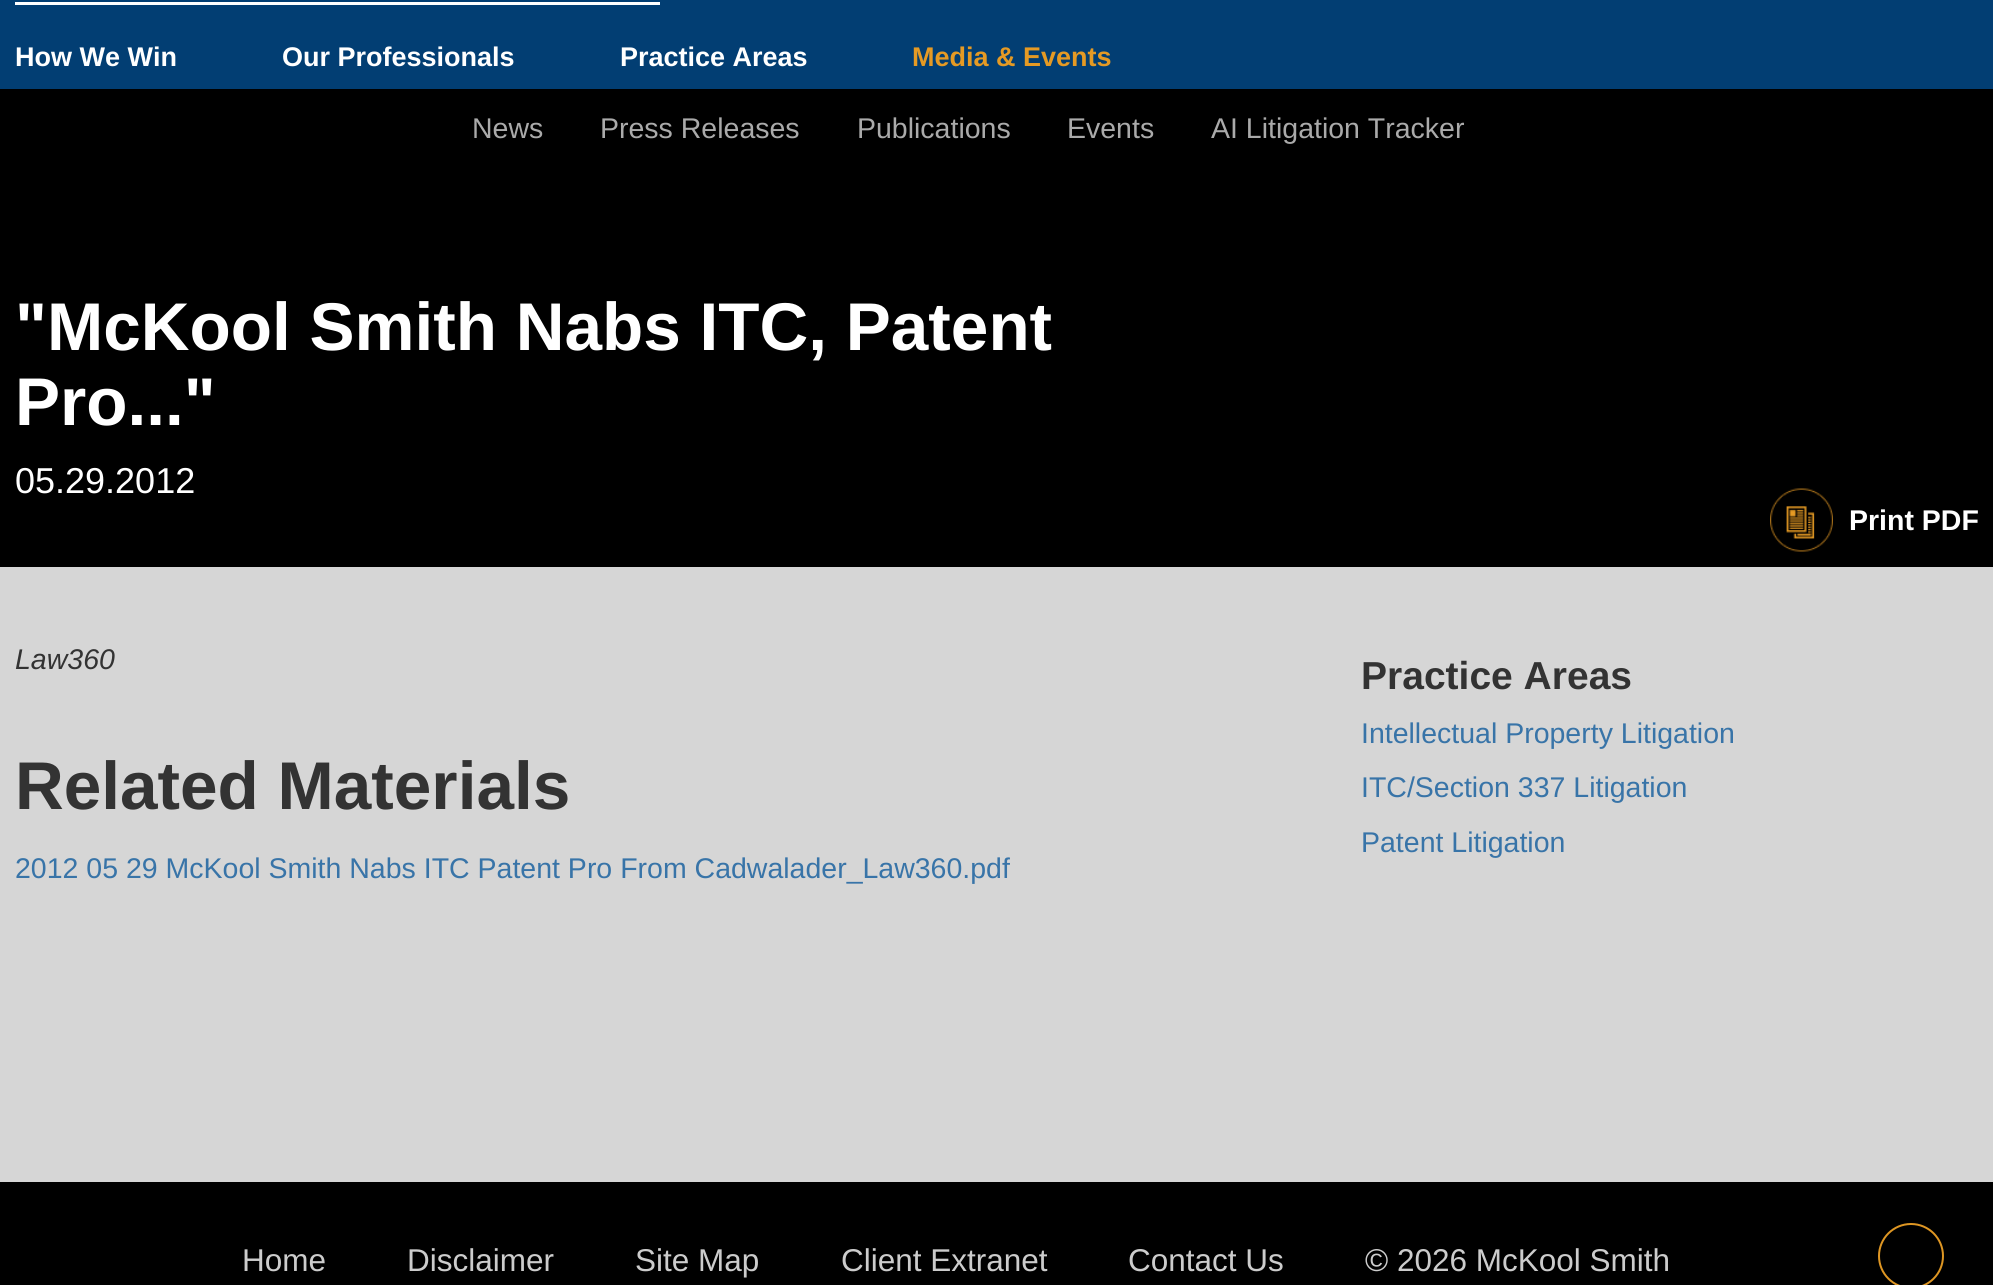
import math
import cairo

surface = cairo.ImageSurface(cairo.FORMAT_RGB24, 1993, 1285)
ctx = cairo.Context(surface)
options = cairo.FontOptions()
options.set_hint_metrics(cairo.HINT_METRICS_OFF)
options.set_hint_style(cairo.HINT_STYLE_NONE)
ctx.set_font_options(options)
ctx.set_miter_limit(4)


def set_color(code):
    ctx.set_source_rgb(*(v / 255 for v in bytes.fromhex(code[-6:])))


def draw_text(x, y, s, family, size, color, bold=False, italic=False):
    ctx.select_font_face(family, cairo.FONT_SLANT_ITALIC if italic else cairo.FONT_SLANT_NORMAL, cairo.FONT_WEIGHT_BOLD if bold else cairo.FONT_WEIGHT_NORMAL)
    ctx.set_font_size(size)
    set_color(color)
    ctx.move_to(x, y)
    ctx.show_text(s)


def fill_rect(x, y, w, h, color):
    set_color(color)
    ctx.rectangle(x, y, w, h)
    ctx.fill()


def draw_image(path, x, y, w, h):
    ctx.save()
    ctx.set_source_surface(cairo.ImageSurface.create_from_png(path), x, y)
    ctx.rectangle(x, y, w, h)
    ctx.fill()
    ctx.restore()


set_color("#000000")
ctx.paint()
fill_rect(0, 0, 1993, 89, "#023e73")
fill_rect(15, 2, 645, 3, "#ffffff")
draw_text(15, 66, "How We Win", "Liberation Sans", 27, "#ffffff", bold=True)
draw_text(282, 66, "Our Professionals", "Liberation Sans", 27, "#ffffff", bold=True)
draw_text(620, 66, "Practice Areas", "Liberation Sans", 27, "#ffffff", bold=True)
draw_text(912, 66, "Media & Events", "Liberation Sans", 27, "#e59a24", bold=True)
draw_text(472, 138, "News", "Liberation Sans", 28.5, "#aaaaaa")
draw_text(600, 138, "Press Releases", "Liberation Sans", 28.5, "#aaaaaa")
draw_text(857, 138, "Publications", "Liberation Sans", 28.5, "#aaaaaa")
draw_text(1067, 138, "Events", "Liberation Sans", 28.5, "#aaaaaa")
draw_text(1211, 138, "AI Litigation Tracker", "Liberation Sans", 28.5, "#aaaaaa")
draw_text(15, 350, "\"McKool Smith Nabs ITC, Patent", "Liberation Sans", 67.5, "#ffffff", bold=True)
draw_text(15, 425, "Pro...\"", "Liberation Sans", 67.5, "#ffffff", bold=True)
draw_text(15, 493, "05.29.2012", "Liberation Sans", 36, "#ffffff")
draw_image("assets/img1.png", 1770, 488, 63, 64)
draw_text(1849, 530, "Print PDF", "Liberation Sans", 28.5, "#ffffff", bold=True)
fill_rect(0, 567, 1993, 615, "#d6d6d6")
draw_text(15, 669, "Law360", "Liberation Sans", 28.5, "#333333", italic=True)
draw_text(15, 809, "Related Materials", "Liberation Sans", 67.5, "#333333", bold=True)
draw_text(15, 878, "2012 05 29 McKool Smith Nabs ITC Patent Pro From Cadwalader_Law360.pdf", "Liberation Sans", 28.5, "#3874a8")
draw_text(1361, 689, "Practice Areas", "Liberation Sans", 39, "#333333", bold=True)
draw_text(1361, 743, "Intellectual Property Litigation", "Liberation Sans", 28.5, "#3874a8")
draw_text(1361, 797, "ITC/Section 337 Litigation", "Liberation Sans", 28.5, "#3874a8")
draw_text(1361, 852, "Patent Litigation", "Liberation Sans", 28.5, "#3874a8")
draw_text(242, 1271, "Home", "Liberation Sans", 31.5, "#cccccc")
draw_text(407, 1271, "Disclaimer", "Liberation Sans", 31.5, "#cccccc")
draw_text(635, 1271, "Site Map", "Liberation Sans", 31.5, "#cccccc")
draw_text(841, 1271, "Client Extranet", "Liberation Sans", 31.5, "#cccccc")
draw_text(1128, 1271, "Contact Us", "Liberation Sans", 31.5, "#cccccc")
draw_text(1365, 1271, "© 2026 McKool Smith", "Liberation Sans", 31.5, "#cccccc")
ctx.new_path()
ctx.arc(1911, 1256, 32, 0, 2 * math.pi)
set_color("#de9623")
ctx.stroke()
surface.write_to_png("output.png")
